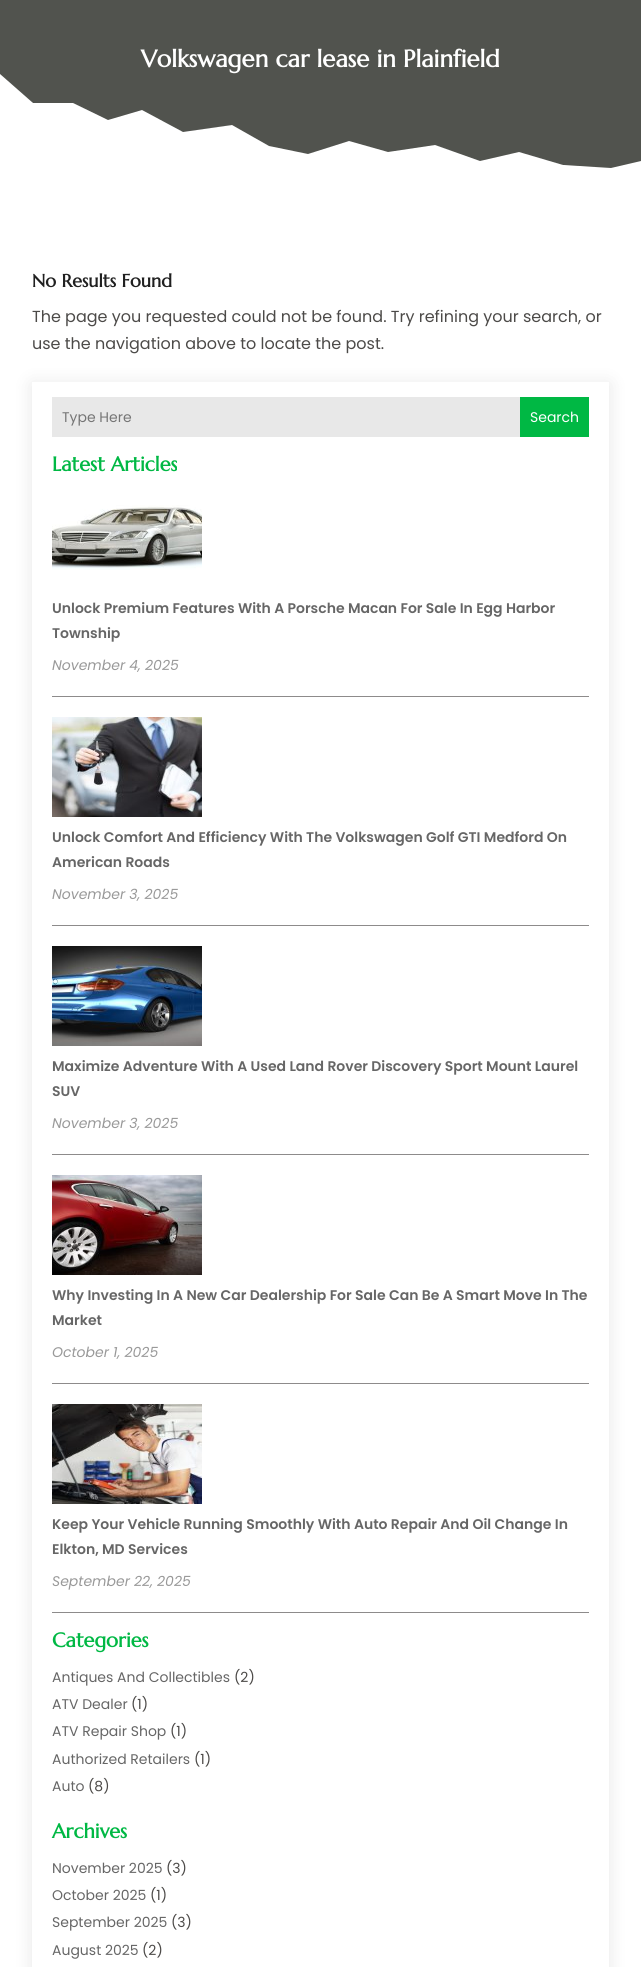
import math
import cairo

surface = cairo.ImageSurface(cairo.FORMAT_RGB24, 641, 1967)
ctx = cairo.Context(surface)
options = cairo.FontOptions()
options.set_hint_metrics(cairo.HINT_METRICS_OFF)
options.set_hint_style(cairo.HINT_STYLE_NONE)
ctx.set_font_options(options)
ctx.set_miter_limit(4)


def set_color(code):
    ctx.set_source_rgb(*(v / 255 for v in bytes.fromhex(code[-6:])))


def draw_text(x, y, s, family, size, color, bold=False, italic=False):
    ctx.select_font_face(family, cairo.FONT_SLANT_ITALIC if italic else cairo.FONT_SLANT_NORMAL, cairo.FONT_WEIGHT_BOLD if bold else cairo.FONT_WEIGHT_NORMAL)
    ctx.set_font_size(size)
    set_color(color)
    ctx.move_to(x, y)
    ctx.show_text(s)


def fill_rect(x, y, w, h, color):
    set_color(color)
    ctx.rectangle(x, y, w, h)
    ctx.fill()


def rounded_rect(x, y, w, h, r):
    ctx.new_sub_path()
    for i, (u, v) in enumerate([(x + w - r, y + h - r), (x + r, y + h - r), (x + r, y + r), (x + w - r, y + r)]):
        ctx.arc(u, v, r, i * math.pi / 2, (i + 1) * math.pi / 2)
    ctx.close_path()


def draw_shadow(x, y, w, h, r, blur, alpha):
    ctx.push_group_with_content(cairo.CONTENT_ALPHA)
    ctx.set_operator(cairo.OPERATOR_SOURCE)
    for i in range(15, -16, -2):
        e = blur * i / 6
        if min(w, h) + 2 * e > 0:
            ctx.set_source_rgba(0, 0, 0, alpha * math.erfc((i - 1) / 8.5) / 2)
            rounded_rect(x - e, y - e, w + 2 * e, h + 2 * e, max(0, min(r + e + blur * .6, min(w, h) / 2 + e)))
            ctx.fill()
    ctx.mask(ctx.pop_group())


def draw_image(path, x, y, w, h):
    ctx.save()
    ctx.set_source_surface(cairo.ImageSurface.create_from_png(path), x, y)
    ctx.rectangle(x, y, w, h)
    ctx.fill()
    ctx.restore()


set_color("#ffffff")
ctx.paint()
fill_rect(0, 0, 641, 168, "#51534e")
draw_text(141, 67, "Volkswagen car lease in Plainfield", "Marcellus", 24, "#ffffff", bold=True)
ctx.new_path()
ctx.move_to(641, 161)
ctx.line_to(611, 168)
ctx.line_to(563, 165)
ctx.line_to(519, 152)
ctx.line_to(480, 161)
ctx.line_to(435, 145)
ctx.line_to(388, 152)
ctx.line_to(349, 141)
ctx.line_to(308, 154)
ctx.line_to(269, 146)
ctx.line_to(232, 125)
ctx.line_to(183, 132)
ctx.line_to(142, 110)
ctx.line_to(108, 120)
ctx.line_to(73, 103)
ctx.line_to(33, 103)
ctx.line_to(0, 74)
ctx.line_to(0, 174)
ctx.line_to(641, 174)
ctx.close_path()
ctx.fill()
draw_text(32, 287, "No Results Found", "Marcellus", 18, "#202020", bold=True)
draw_text(32, 322, "The page you requested could not be found. Try refining your search, or", "Poppins", 16, "#4c4a48")
draw_text(32, 349, "use the navigation above to locate the post.", "Poppins", 16, "#4c4a48")
ctx.save()
ctx.set_fill_rule(cairo.FILL_RULE_EVEN_ODD)
ctx.new_path()
ctx.move_to(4, 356)
ctx.line_to(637, 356)
ctx.line_to(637, 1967)
ctx.line_to(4, 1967)
ctx.close_path()
ctx.move_to(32, 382)
ctx.line_to(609, 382)
ctx.line_to(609, 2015)
ctx.line_to(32, 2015)
ctx.close_path()
ctx.clip()
set_color("#000000")
draw_shadow(32, 384, 577, 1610, 0, 9, 0.1)
ctx.restore()
fill_rect(52, 397, 468, 40, "#e8e8e8")
draw_text(62, 422, "Type Here", "Poppins", 14, "#757575")
fill_rect(520, 397, 69, 40, "#00b844")
draw_text(530, 422, "Search", "Poppins", 14, "#ffffff")
draw_text(52, 471, "Latest Articles", "Marcellus", 20, "#00b844", bold=True)
fill_rect(52, 696, 537, 1, "#8d8b8b")
draw_image("assets/img1.png", 52, 505, 150, 65)
draw_text(52, 613, "Unlock Premium Features With A Porsche Macan For Sale In Egg Harbor", "Poppins SemiBold", 14, "#666666")
draw_text(52, 638, "Township", "Poppins SemiBold", 14, "#666666")
draw_text(52, 670, "November 4, 2025", "Poppins", 14, "#999999", italic=True)
fill_rect(52, 925, 537, 1, "#8d8b8b")
draw_image("assets/img2.png", 52, 717, 150, 100)
draw_text(52, 842, "Unlock Comfort And Efficiency With The Volkswagen Golf GTI Medford On", "Poppins SemiBold", 14, "#666666")
draw_text(52, 867, "American Roads", "Poppins SemiBold", 14, "#666666")
draw_text(52, 899, "November 3, 2025", "Poppins", 14, "#999999", italic=True)
fill_rect(52, 1154, 537, 1, "#8d8b8b")
draw_image("assets/img3.png", 52, 946, 150, 100)
draw_text(52, 1071, "Maximize Adventure With A Used Land Rover Discovery Sport Mount Laurel", "Poppins SemiBold", 14, "#666666")
draw_text(52, 1096, "SUV", "Poppins SemiBold", 14, "#666666")
draw_text(52, 1128, "November 3, 2025", "Poppins", 14, "#999999", italic=True)
fill_rect(52, 1383, 537, 1, "#8d8b8b")
draw_image("assets/img4.png", 52, 1175, 150, 100)
draw_text(52, 1300, "Why Investing In A New Car Dealership For Sale Can Be A Smart Move In The", "Poppins SemiBold", 14, "#666666")
draw_text(52, 1325, "Market", "Poppins SemiBold", 14, "#666666")
draw_text(52, 1357, "October 1, 2025", "Poppins", 14, "#999999", italic=True)
fill_rect(52, 1612, 537, 1, "#8d8b8b")
draw_image("assets/img5.png", 52, 1404, 150, 100)
draw_text(52, 1529, "Keep Your Vehicle Running Smoothly With Auto Repair And Oil Change In", "Poppins SemiBold", 14, "#666666")
draw_text(52, 1554, "Elkton, MD Services", "Poppins SemiBold", 14, "#666666")
draw_text(52, 1586, "September 22, 2025", "Poppins", 14, "#999999", italic=True)
draw_text(52, 1647, "Categories", "Marcellus", 20, "#00b844", bold=True)
draw_text(52, 1682, "Antiques And Collectibles", "Poppins", 14, "#666666")
draw_text(234, 1682, "(2)", "Poppins", 14, "#4c4a48")
draw_text(52, 1709, "ATV Dealer", "Poppins", 14, "#666666")
draw_text(131, 1709, "(1)", "Poppins", 14, "#4c4a48")
draw_text(52, 1736, "ATV Repair Shop", "Poppins", 14, "#666666")
draw_text(170, 1736, "(1)", "Poppins", 14, "#4c4a48")
draw_text(52, 1764, "Authorized Retailers", "Poppins", 14, "#666666")
draw_text(194, 1764, "(1)", "Poppins", 14, "#4c4a48")
draw_text(52, 1791, "Auto", "Poppins", 14, "#666666")
draw_text(88, 1791, "(8)", "Poppins", 14, "#4c4a48")
draw_text(52, 1838, "Archives", "Marcellus", 20, "#00b844", bold=True)
draw_text(52, 1873, "November 2025", "Poppins", 14, "#666666")
draw_text(166, 1873, "(3)", "Poppins", 14, "#4c4a48")
draw_text(52, 1900, "October 2025", "Poppins", 14, "#666666")
draw_text(150, 1900, "(1)", "Poppins", 14, "#4c4a48")
draw_text(52, 1927, "September 2025", "Poppins", 14, "#666666")
draw_text(171, 1927, "(3)", "Poppins", 14, "#4c4a48")
draw_text(52, 1955, "August 2025", "Poppins", 14, "#666666")
draw_text(142, 1955, "(2)", "Poppins", 14, "#4c4a48")
surface.write_to_png("output.png")
